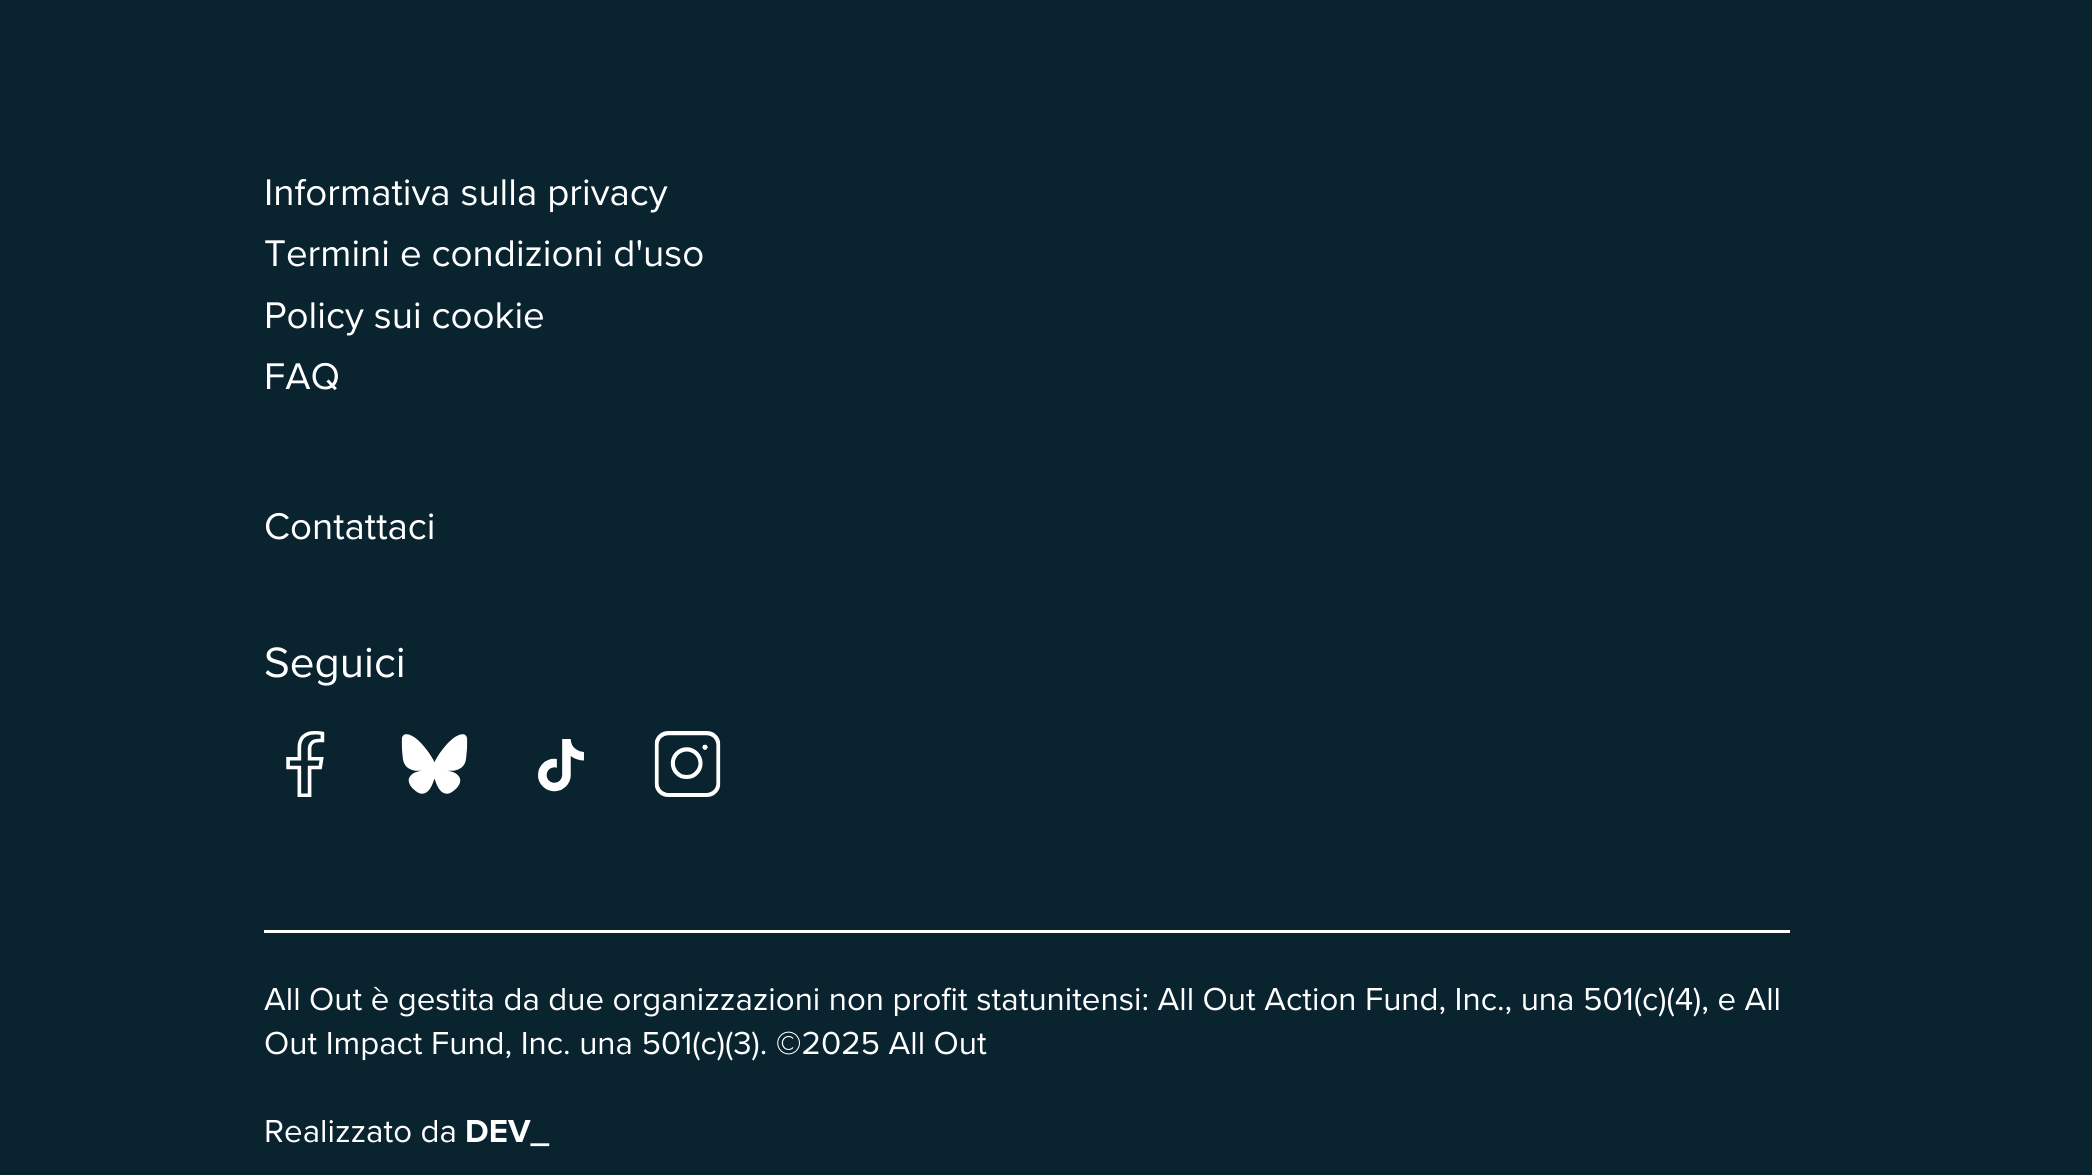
import math
import cairo

surface = cairo.ImageSurface(cairo.FORMAT_RGB24, 2092, 1175)
ctx = cairo.Context(surface)
options = cairo.FontOptions()
options.set_hint_metrics(cairo.HINT_METRICS_OFF)
options.set_hint_style(cairo.HINT_STYLE_NONE)
ctx.set_font_options(options)
ctx.set_miter_limit(4)


def set_color(code):
    ctx.set_source_rgb(*(v / 255 for v in bytes.fromhex(code[-6:])))


def draw_text(x, y, s, family, size, color, bold=False, italic=False):
    ctx.select_font_face(family, cairo.FONT_SLANT_ITALIC if italic else cairo.FONT_SLANT_NORMAL, cairo.FONT_WEIGHT_BOLD if bold else cairo.FONT_WEIGHT_NORMAL)
    ctx.set_font_size(size)
    set_color(color)
    ctx.move_to(x, y)
    ctx.show_text(s)


def fill_rect(x, y, w, h, color):
    set_color(color)
    ctx.rectangle(x, y, w, h)
    ctx.fill()


def draw_image(path, x, y, w, h):
    ctx.save()
    ctx.set_source_surface(cairo.ImageSurface.create_from_png(path), x, y)
    ctx.rectangle(x, y, w, h)
    ctx.fill()
    ctx.restore()


set_color("#09232f")
ctx.paint()
draw_text(264, 205, "Informativa sulla privacy", "Proxima Nova", 38.5, "#ffffff")
draw_text(264, 266, "Termini e condizioni d'uso", "Proxima Nova", 38.5, "#ffffff")
draw_text(264, 328, "Policy sui cookie", "Proxima Nova", 38.5, "#ffffff")
draw_text(264, 389, "FAQ", "Proxima Nova", 38.5, "#ffffff")
draw_text(264, 539, "Contattaci", "Proxima Nova", 38.5, "#ffffff")
draw_text(264, 677, "Seguici", "Proxima Nova", 44, "#ffffff")
draw_image("assets/img1.png", 286, 731, 39, 66)
draw_image("assets/img2.png", 401, 734, 67, 60)
draw_image("assets/img3.png", 538, 739, 46, 53)
draw_image("assets/img4.png", 654, 731, 67, 66)
fill_rect(264, 930, 1526, 3, "#ffffff")
draw_text(264, 1010, "All Out è gestita da due organizzazioni non profit statunitensi: All Out Action Fund, Inc., una 501(c)(4), e All", "Proxima Nova", 33, "#ffffff")
draw_text(264, 1054, "Out Impact Fund, Inc. una 501(c)(3). ©2025 All Out", "Proxima Nova", 33, "#ffffff")
draw_text(264, 1142, "Realizzato da", "Proxima Nova", 33, "#ffffff")
draw_text(465, 1142, "DEV_", "Proxima Nova", 33, "#ffffff", bold=True)
surface.write_to_png("output.png")
